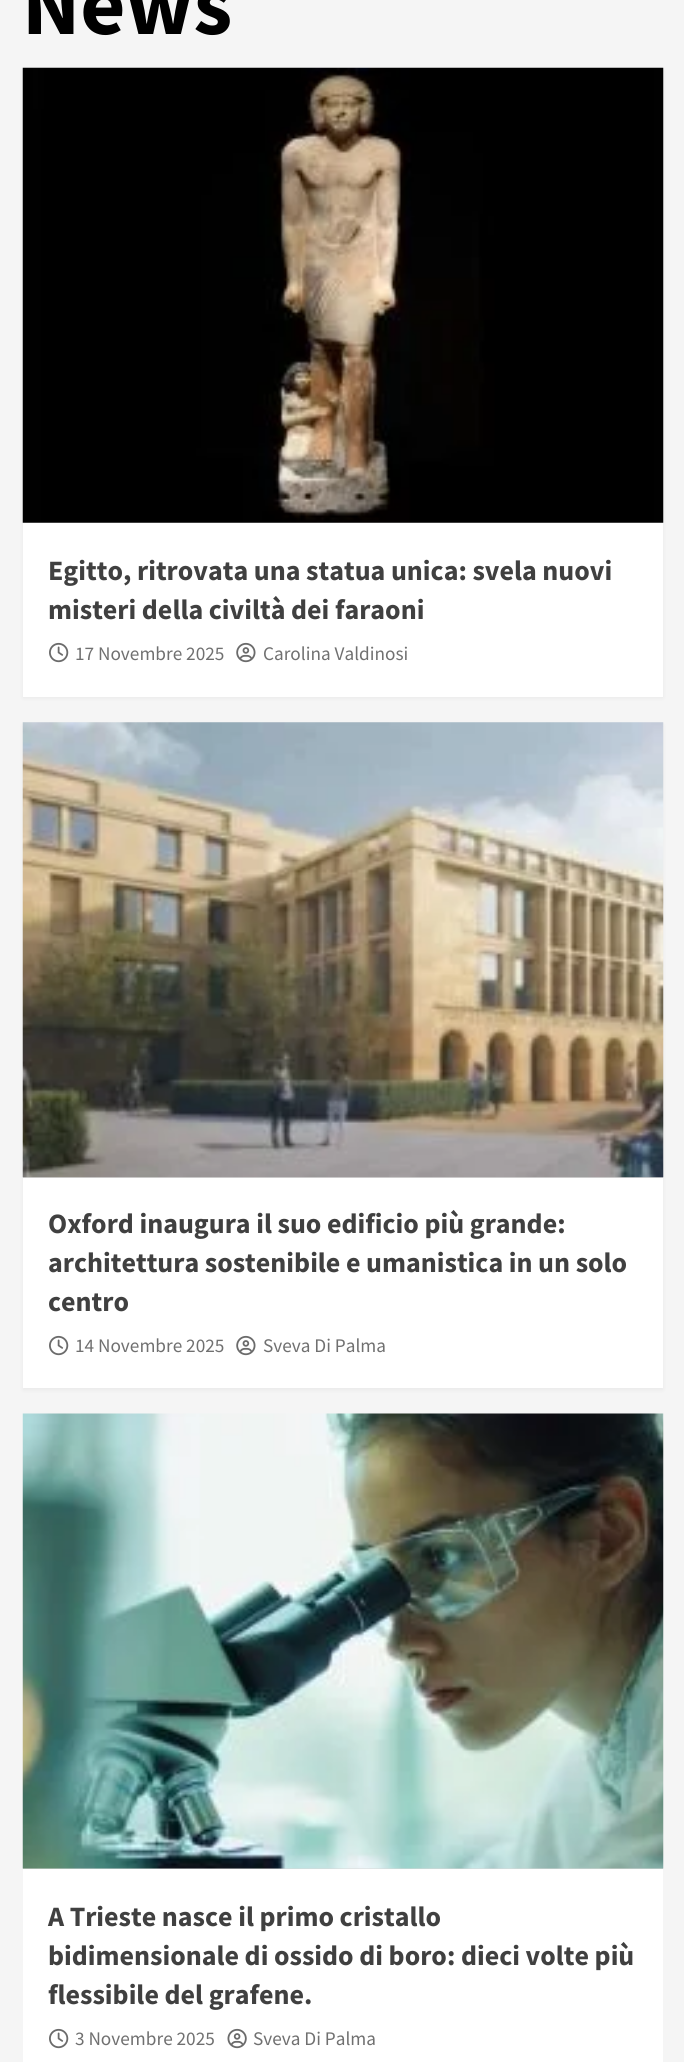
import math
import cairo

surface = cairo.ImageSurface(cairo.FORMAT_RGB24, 684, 2062)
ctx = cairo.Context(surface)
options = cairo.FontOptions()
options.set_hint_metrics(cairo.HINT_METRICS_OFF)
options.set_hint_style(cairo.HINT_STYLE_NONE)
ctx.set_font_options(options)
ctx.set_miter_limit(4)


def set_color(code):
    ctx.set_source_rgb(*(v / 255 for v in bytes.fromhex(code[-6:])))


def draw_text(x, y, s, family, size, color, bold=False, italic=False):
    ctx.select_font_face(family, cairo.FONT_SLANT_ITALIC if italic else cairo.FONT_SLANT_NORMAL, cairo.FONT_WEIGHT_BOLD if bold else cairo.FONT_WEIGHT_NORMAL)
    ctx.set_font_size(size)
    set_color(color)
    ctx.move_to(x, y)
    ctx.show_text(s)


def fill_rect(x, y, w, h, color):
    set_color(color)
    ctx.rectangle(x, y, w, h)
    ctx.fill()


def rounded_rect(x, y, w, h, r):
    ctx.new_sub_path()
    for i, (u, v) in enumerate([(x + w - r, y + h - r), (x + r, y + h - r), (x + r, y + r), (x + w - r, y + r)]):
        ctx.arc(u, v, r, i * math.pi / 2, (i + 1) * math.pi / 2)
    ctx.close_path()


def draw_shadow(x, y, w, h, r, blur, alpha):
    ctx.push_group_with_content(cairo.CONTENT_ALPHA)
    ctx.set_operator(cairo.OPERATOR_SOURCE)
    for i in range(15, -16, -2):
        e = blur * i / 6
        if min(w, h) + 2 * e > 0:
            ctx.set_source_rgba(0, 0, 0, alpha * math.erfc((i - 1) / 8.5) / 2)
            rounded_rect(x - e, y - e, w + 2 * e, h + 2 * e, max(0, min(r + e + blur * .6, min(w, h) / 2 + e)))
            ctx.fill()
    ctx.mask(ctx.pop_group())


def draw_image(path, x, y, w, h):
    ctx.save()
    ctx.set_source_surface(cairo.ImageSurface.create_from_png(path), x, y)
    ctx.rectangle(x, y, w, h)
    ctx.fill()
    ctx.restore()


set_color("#f5f5f5")
ctx.paint()
draw_text(22, 34, "News", "Source Sans Pro", 87.5, "#000000", bold=True)
set_color("#000000")
draw_shadow(23, 70, 640, 628, 0, 2, 0.05)
fill_rect(23, 522, 640, 175, "#ffffff")
draw_image("assets/img1.png", 22, 67, 642, 456)
draw_text(48, 580, "Egitto, ritrovata una statua unica: svela nuovi", "Source Sans Pro", 28, "#404040", bold=True)
draw_text(48, 619, "misteri della civiltà dei faraoni", "Source Sans Pro", 28, "#404040", bold=True)
draw_image("assets/img2.png", 49, 642, 20, 21)
draw_text(75, 660, "17 Novembre 2025", "Source Sans Pro", 19.25, "#707070")
draw_image("assets/img3.png", 236, 642, 20, 21)
draw_text(263, 660, "Carolina Valdinosi", "Source Sans Pro", 19.25, "#707070")
set_color("#000000")
draw_shadow(23, 725, 640, 665, 0, 2, 0.05)
fill_rect(23, 1178, 640, 210, "#ffffff")
fill_rect(23, 1177, 640, 1, "#d8d8d8")
draw_image("assets/img4.png", 22, 722, 642, 456)
draw_text(48, 1233, "Oxford inaugura il suo edificio più grande:", "Source Sans Pro", 28, "#404040", bold=True)
draw_text(48, 1272, "architettura sostenibile e umanistica in un solo", "Source Sans Pro", 28, "#404040", bold=True)
draw_text(48, 1311, "centro", "Source Sans Pro", 28, "#404040", bold=True)
draw_image("assets/img2.png", 49, 1335, 20, 21)
draw_text(75, 1352, "14 Novembre 2025", "Source Sans Pro", 19.25, "#707070")
draw_image("assets/img3.png", 236, 1335, 20, 21)
draw_text(263, 1352, "Sveva Di Palma", "Source Sans Pro", 19.25, "#707070")
fill_rect(23, 1869, 640, 193, "#ffffff")
fill_rect(23, 1868, 640, 1, "#d8d8d8")
draw_image("assets/img5.png", 22, 1413, 642, 456)
draw_text(48, 1926, "A Trieste nasce il primo cristallo", "Source Sans Pro", 28, "#404040", bold=True)
draw_text(48, 1965, "bidimensionale di ossido di boro: dieci volte più", "Source Sans Pro", 28, "#404040", bold=True)
draw_text(48, 2004, "flessibile del grafene.", "Source Sans Pro", 28, "#404040", bold=True)
draw_image("assets/img2.png", 49, 2028, 20, 21)
draw_text(75, 2045, "3 Novembre 2025", "Source Sans Pro", 19.25, "#707070")
draw_image("assets/img6.png", 227, 2028, 20, 21)
draw_text(253, 2045, "Sveva Di Palma", "Source Sans Pro", 19.25, "#707070")
surface.write_to_png("output.png")
